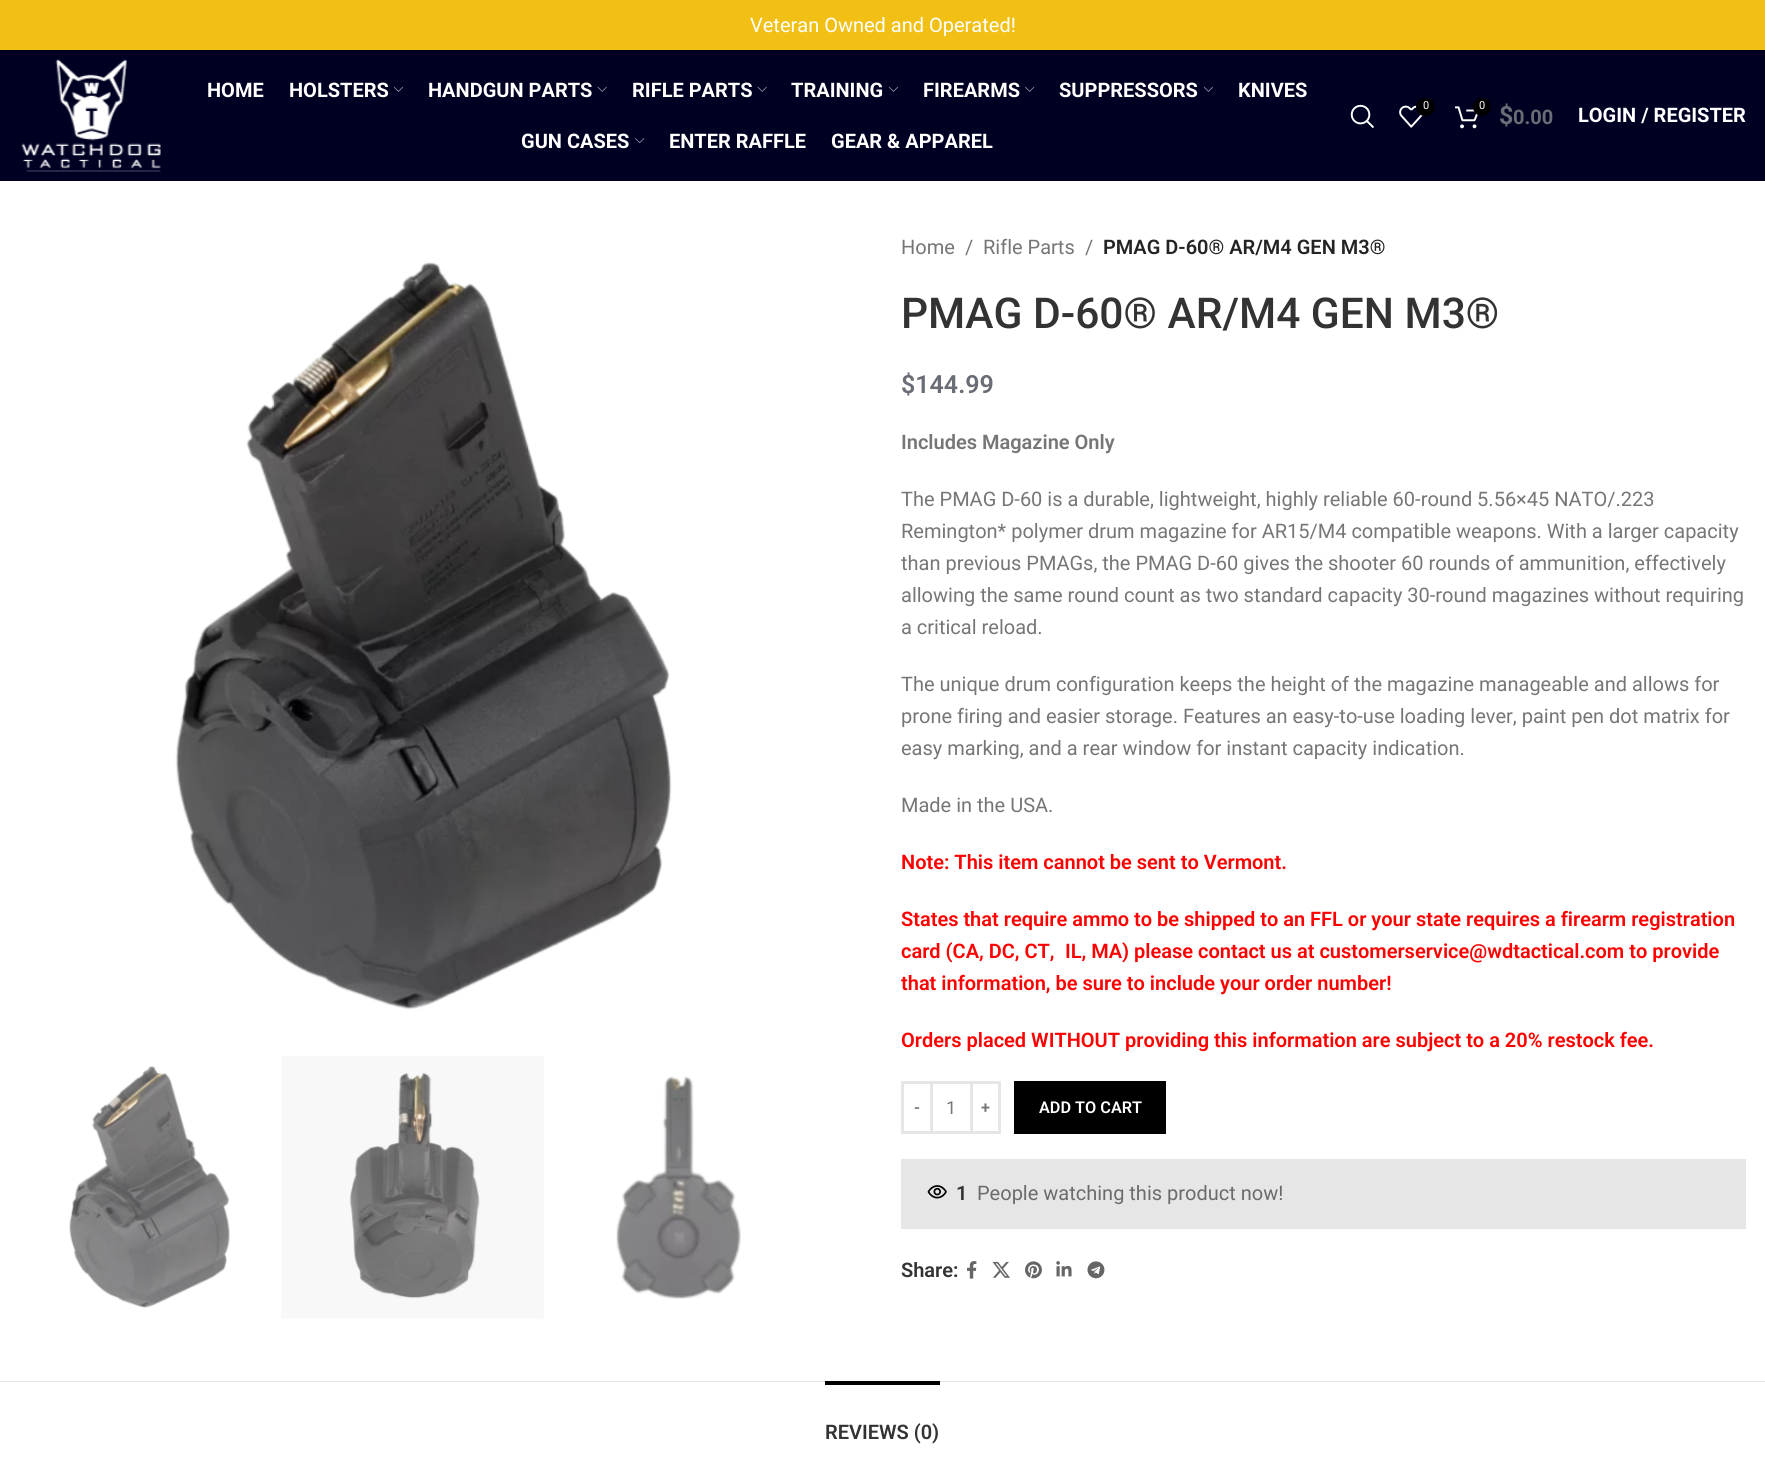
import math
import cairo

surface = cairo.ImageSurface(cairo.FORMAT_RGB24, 1765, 1463)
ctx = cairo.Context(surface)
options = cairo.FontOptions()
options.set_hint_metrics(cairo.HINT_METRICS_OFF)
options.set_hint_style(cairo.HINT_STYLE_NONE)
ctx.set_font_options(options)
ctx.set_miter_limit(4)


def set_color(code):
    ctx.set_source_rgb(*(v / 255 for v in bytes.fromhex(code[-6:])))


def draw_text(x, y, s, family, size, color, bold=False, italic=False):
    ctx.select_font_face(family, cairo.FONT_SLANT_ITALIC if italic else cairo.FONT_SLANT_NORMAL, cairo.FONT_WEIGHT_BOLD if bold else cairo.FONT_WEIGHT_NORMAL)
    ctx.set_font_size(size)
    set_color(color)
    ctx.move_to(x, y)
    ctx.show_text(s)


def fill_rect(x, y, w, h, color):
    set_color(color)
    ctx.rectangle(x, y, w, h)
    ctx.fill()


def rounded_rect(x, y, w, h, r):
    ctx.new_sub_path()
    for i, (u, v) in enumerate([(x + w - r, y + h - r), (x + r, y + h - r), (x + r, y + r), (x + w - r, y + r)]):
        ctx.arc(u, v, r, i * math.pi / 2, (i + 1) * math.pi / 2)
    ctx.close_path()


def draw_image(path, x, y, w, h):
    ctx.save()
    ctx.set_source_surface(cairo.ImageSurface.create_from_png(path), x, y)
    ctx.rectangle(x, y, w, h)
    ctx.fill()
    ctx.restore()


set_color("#ffffff")
ctx.paint()
fill_rect(901, 1159, 845, 70, "#e6e6e6")
fill_rect(0, 0, 1765, 50, "#f2c014")
draw_text(750, 32, "Veteran Owned and Operated!", "Roboto", 20, "#ffffff")
fill_rect(0, 50, 1765, 131, "#000023")
draw_image("assets/img1.png", 21, 59, 140, 113)
draw_text(207, 97, "HOME", "Roboto", 20, "#ffffff", bold=True)
draw_text(289, 97, "HOLSTERS", "Roboto", 20, "#ffffff", bold=True)
draw_image("assets/img2.png", 393, 86, 10, 6)
draw_text(428, 97, "HANDGUN PARTS", "Roboto", 20, "#ffffff", bold=True)
draw_image("assets/img3.png", 597, 86, 10, 6)
draw_text(632, 97, "RIFLE PARTS", "Roboto", 20, "#ffffff", bold=True)
draw_image("assets/img3.png", 757, 86, 10, 6)
draw_text(791, 97, "TRAINING", "Roboto", 20, "#ffffff", bold=True)
draw_image("assets/img2.png", 888, 86, 10, 6)
draw_text(923, 97, "FIREARMS", "Roboto", 20, "#ffffff", bold=True)
draw_image("assets/img4.png", 1025, 86, 10, 6)
draw_text(1059, 97, "SUPPRESSORS", "Roboto", 20, "#ffffff", bold=True)
draw_image("assets/img2.png", 1203, 86, 10, 6)
draw_text(1238, 97, "KNIVES", "Roboto", 20, "#ffffff", bold=True)
draw_text(521, 148, "GUN CASES", "Roboto", 20, "#ffffff", bold=True)
draw_image("assets/img5.png", 635, 138, 10, 6)
draw_text(669, 148, "ENTER RAFFLE", "Roboto", 20, "#ffffff", bold=True)
draw_text(831, 148, "GEAR & APPAREL", "Roboto", 20, "#ffffff", bold=True)
draw_image("assets/img6.png", 1350, 104, 24, 25)
draw_image("assets/img7.png", 1399, 105, 24, 23)
set_color("#000000")
rounded_rect(1416, 98, 19, 18, 9)
ctx.fill()
draw_text(1423, 109, "0", "Roboto", 11, "#ffffff")
draw_image("assets/img8.png", 1455, 106, 23, 23)
set_color("#000000")
ctx.arc(1482, 107, 9, 0, 2 * math.pi)
ctx.fill()
draw_text(1479, 109, "0", "Roboto", 11, "#ffffff")
draw_text(1499, 124, "$", "Roboto", 25, "#686d76", bold=True)
draw_text(1513, 124, "0.00", "Roboto", 20, "#686d76", bold=True)
draw_text(1578, 122, "LOGIN / REGISTER", "Roboto", 20, "#ffffff", bold=True)
draw_image("assets/img9.png", 175, 262, 497, 748)
draw_image("assets/img10.png", 69, 1066, 161, 242)
draw_image("assets/img11.png", 281, 1056, 263, 263)
draw_image("assets/img12.png", 616, 1076, 125, 223)
draw_text(901, 254, "Home", "Roboto", 20, "#767676")
draw_text(965, 254, "/", "Roboto", 20, "#767676")
draw_text(983, 254, "Rifle Parts", "Roboto", 20, "#767676")
draw_text(1085, 254, "/", "Roboto", 20, "#767676")
draw_text(1103, 254, "PMAG D-60® AR/M4 GEN M3®", "Roboto SemiBold", 20, "#242424")
draw_text(901, 328, "PMAG D-60® AR/M4 GEN M3®", "Roboto Medium", 42.5, "#333333")
draw_text(901, 393, "$144.99", "Roboto SemiBold", 25, "#686d76")
draw_text(901, 449, "Includes Magazine Only", "Roboto SemiBold", 20, "#767676")
draw_text(901, 506, "The PMAG D-60 is a durable, lightweight, highly reliable 60-round 5.56×45 NATO/.223", "Roboto", 20, "#767676")
draw_text(901, 538, "Remington* polymer drum magazine for AR15/M4 compatible weapons. With a larger capacity", "Roboto", 20, "#767676")
draw_text(901, 570, "than previous PMAGs, the PMAG D-60 gives the shooter 60 rounds of ammunition, effectively", "Roboto", 20, "#767676")
draw_text(901, 602, "allowing the same round count as two standard capacity 30-round magazines without requiring", "Roboto", 20, "#767676")
draw_text(901, 634, "a critical reload.", "Roboto", 20, "#767676")
draw_text(901, 691, "The unique drum configuration keeps the height of the magazine manageable and allows for", "Roboto", 20, "#767676")
draw_text(901, 723, "prone firing and easier storage. Features an easy-to-use loading lever, paint pen dot matrix for", "Roboto", 20, "#767676")
draw_text(901, 755, "easy marking, and a rear window for instant capacity indication.", "Roboto", 20, "#767676")
draw_text(901, 812, "Made in the USA.", "Roboto", 20, "#767676")
draw_text(901, 869, "Note: This item cannot be sent to Vermont.", "Roboto SemiBold", 20, "#ff0000")
draw_text(901, 926, "States that require ammo to be shipped to an FFL or your state requires a firearm registration", "Roboto SemiBold", 20, "#ff0000")
draw_text(901, 958, "card (CA, DC, CT,", "Roboto SemiBold", 20, "#ff0000")
draw_text(1065, 958, "IL, MA) please contact us at customerservice@wdtactical.com to provide", "Roboto SemiBold", 20, "#ff0000")
draw_text(901, 990, "that information, be sure to include your order number!", "Roboto SemiBold", 20, "#ff0000")
draw_text(901, 1047, "Orders placed WITHOUT providing this information are subject to a 20% restock fee.", "Roboto SemiBold", 20, "#ff0000")
ctx.rectangle(902.5, 1082.5, 29, 50)
set_color("#e6e6e6")
ctx.set_line_width(3)
ctx.stroke()
draw_text(914, 1113, "-", "Roboto SemiBold", 16.25, "#767676")
fill_rect(933, 1081, 37, 3, "#e6e6e6")
fill_rect(933, 1131, 37, 3, "#e6e6e6")
draw_text(946, 1114, "1", "Roboto", 18, "#767676")
ctx.rectangle(971.5, 1082.5, 28, 50)
set_color("#e6e6e6")
ctx.stroke()
draw_text(981, 1113, "+", "Roboto SemiBold", 16.25, "#767676")
fill_rect(1014, 1081, 152, 53, "#000000")
draw_text(1039, 1113, "ADD TO CART", "Roboto SemiBold", 16.25, "#ffffff")
draw_image("assets/img13.png", 927, 1185, 20, 14)
draw_text(956, 1200, "1", "Roboto SemiBold", 20, "#333333")
draw_text(977, 1200, "People watching this product now!", "Roboto", 20, "#6b6b6b")
draw_text(901, 1277, "Share:", "Roboto SemiBold", 20, "#333333")
draw_image("assets/img14.png", 967, 1261, 10, 18)
draw_image("assets/img15.png", 992, 1261, 18, 17)
draw_image("assets/img16.png", 1025, 1261, 17, 18)
draw_image("assets/img17.png", 1056, 1261, 16, 16)
draw_image("assets/img18.png", 1087, 1261, 18, 18)
fill_rect(0, 1381, 1765, 1, "#e4e4e4")
fill_rect(825, 1381, 115, 4, "#000000")
draw_text(825, 1439, "REVIEWS (0)", "Roboto SemiBold", 20, "#333333")
surface.write_to_png("output.png")
